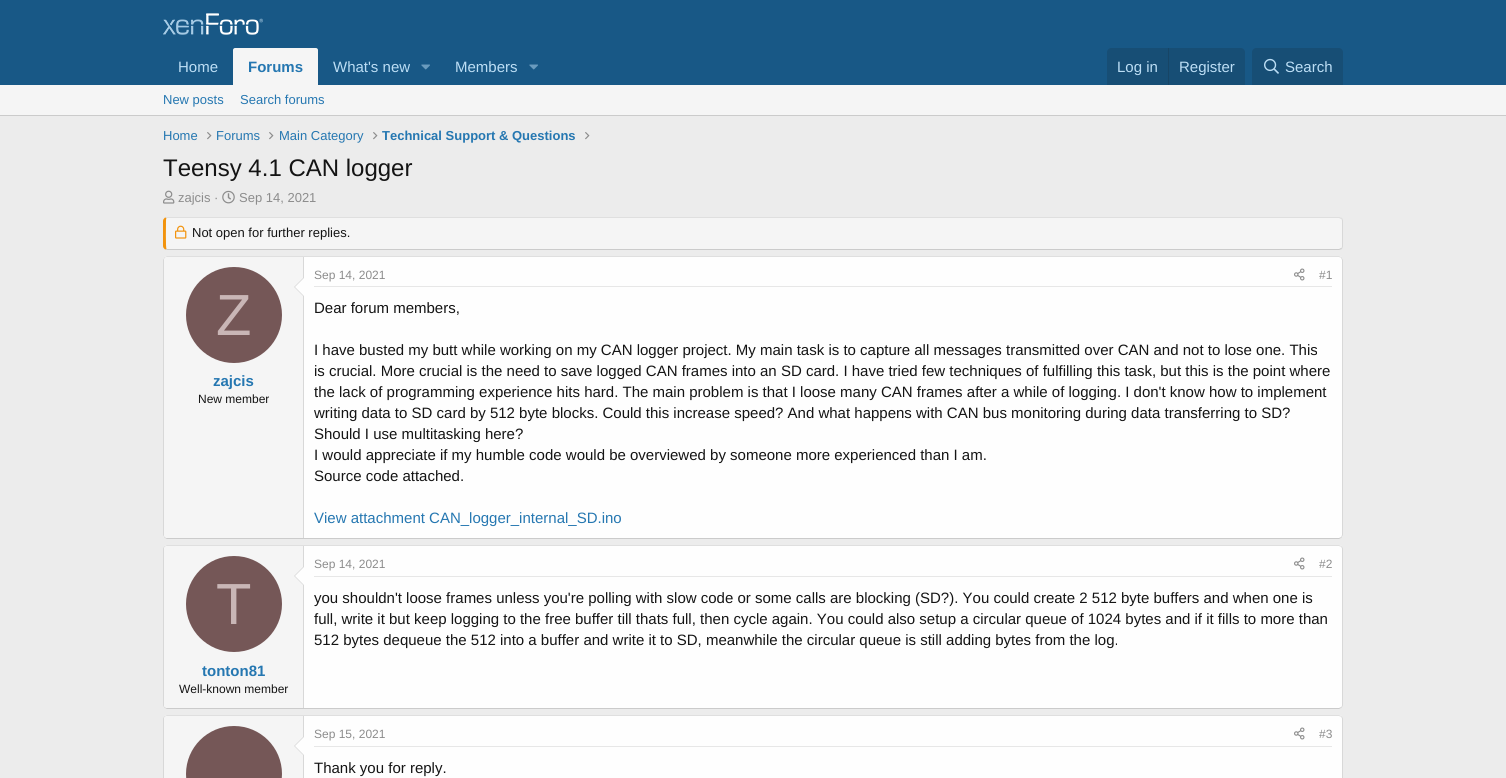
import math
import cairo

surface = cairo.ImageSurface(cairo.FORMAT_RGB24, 1506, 778)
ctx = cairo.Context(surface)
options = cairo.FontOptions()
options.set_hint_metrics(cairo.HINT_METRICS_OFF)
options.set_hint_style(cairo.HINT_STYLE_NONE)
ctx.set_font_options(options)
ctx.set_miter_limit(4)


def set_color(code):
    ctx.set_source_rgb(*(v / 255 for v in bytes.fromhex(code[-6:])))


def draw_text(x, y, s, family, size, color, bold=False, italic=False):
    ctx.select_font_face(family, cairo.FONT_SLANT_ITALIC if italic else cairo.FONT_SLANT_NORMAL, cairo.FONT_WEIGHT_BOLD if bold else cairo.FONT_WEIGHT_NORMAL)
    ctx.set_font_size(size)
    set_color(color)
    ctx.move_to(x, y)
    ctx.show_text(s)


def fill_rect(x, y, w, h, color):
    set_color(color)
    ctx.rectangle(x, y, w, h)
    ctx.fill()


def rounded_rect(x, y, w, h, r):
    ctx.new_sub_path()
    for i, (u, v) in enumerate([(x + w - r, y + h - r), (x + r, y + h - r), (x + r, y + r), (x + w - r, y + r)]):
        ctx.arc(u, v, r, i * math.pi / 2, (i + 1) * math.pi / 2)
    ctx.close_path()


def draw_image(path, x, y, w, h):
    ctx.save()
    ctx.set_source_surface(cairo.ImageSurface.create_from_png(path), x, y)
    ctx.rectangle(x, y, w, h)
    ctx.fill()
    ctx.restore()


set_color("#ececec")
ctx.paint()
fill_rect(0, 0, 1506, 85, "#185886")
draw_image("assets/img1.png", 163, 13, 100, 22)
draw_text(178, 72, "Home", "Liberation Sans", 15, "#bcdef5")
set_color("#f5f5f5")
ctx.new_path()
ctx.move_to(235, 48)
ctx.line_to(316, 48)
ctx.curve_to(317, 48, 318, 49, 318, 50)
ctx.line_to(318, 85)
ctx.line_to(233, 85)
ctx.line_to(233, 50)
ctx.curve_to(233, 49, 234, 48, 235, 48)
ctx.close_path()
ctx.fill()
draw_text(248, 72, "Forums", "Liberation Sans", 15, "#2577b1", bold=True)
draw_text(333, 72, "What's new", "Liberation Sans", 15, "#bcdef5")
draw_image("assets/img2.png", 421, 64, 9, 6)
draw_text(455, 72, "Members", "Liberation Sans", 15, "#bcdef5")
draw_image("assets/img2.png", 529, 64, 9, 6)
set_color("#174e75")
ctx.new_path()
ctx.move_to(1111, 48)
ctx.line_to(1241, 48)
ctx.curve_to(1243, 48, 1245, 50, 1245, 52)
ctx.line_to(1245, 85)
ctx.line_to(1107, 85)
ctx.line_to(1107, 52)
ctx.curve_to(1107, 50, 1109, 48, 1111, 48)
ctx.close_path()
ctx.fill()
draw_text(1117, 72, "Log in", "Liberation Sans", 15, "#bcdef5")
fill_rect(1168, 48, 1, 37, "#174566")
draw_text(1179, 72, "Register", "Liberation Sans", 15, "#bcdef5")
set_color("#174e75")
ctx.new_path()
ctx.move_to(1256, 48)
ctx.line_to(1339, 48)
ctx.curve_to(1341, 48, 1343, 50, 1343, 52)
ctx.line_to(1343, 85)
ctx.line_to(1252, 85)
ctx.line_to(1252, 52)
ctx.curve_to(1252, 50, 1254, 48, 1256, 48)
ctx.close_path()
ctx.fill()
draw_image("assets/img3.png", 1264, 58, 15, 16)
draw_text(1285, 72, "Search", "Liberation Sans", 15, "#bcdef5")
fill_rect(0, 85, 1506, 30, "#f5f5f5")
fill_rect(0, 115, 1506, 1, "#cbcbcb")
draw_text(163, 104, "New posts", "Liberation Sans", 13, "#2577b1")
draw_text(240, 104, "Search forums", "Liberation Sans", 13, "#2577b1")
draw_text(163, 140, "Home", "Liberation Sans", 13, "#2577b1")
draw_image("assets/img4.png", 207, 132, 5, 8)
draw_text(216, 140, "Forums", "Liberation Sans", 13, "#2577b1")
draw_image("assets/img4.png", 269, 132, 5, 8)
draw_text(279, 140, "Main Category", "Liberation Sans", 13, "#2577b1")
draw_image("assets/img4.png", 373, 132, 5, 8)
draw_text(382, 140, "Technical Support & Questions", "Liberation Sans", 13, "#2577b1", bold=True)
draw_image("assets/img4.png", 585, 132, 5, 8)
draw_text(163, 176, "Teensy 4.1 CAN logger", "Liberation Sans", 24, "#141414")
draw_image("assets/img5.png", 163, 190, 12, 14)
draw_text(178, 202, "zajcis ·", "Liberation Sans", 13, "#8c8c8c")
draw_image("assets/img6.png", 222, 190, 13, 14)
draw_text(239, 202, "Sep 14, 2021", "Liberation Sans", 13, "#8c8c8c")
set_color("#f5f5f5")
ctx.new_path()
ctx.move_to(167, 218)
ctx.line_to(1339, 218)
ctx.curve_to(1341, 218, 1342, 219, 1342, 221)
ctx.line_to(1342, 246)
ctx.curve_to(1342, 248, 1341, 249, 1339, 249)
ctx.line_to(167, 249)
ctx.curve_to(166, 249, 166, 248, 166, 246)
ctx.line_to(166, 221)
ctx.curve_to(166, 219, 166, 218, 167, 218)
ctx.close_path()
ctx.fill()
set_color("#dfdfdf")
ctx.new_path()
ctx.move_to(167, 217)
ctx.line_to(165, 218)
ctx.line_to(166, 218)
ctx.line_to(1339, 218)
ctx.line_to(1341, 219)
ctx.line_to(1342, 218)
ctx.line_to(1339, 217)
ctx.close_path()
ctx.fill()
set_color("#d8d8d8")
ctx.new_path()
ctx.move_to(1343, 246)
ctx.line_to(1343, 221)
ctx.curve_to(1343, 220, 1342.5, 219, 1342, 218)
ctx.line_to(1341, 219)
ctx.curve_to(1342, 219, 1342, 220, 1342, 221)
ctx.line_to(1342, 246)
ctx.curve_to(1342, 247, 1342, 248, 1341, 248)
ctx.line_to(1342, 249)
ctx.curve_to(1342.5, 248, 1343, 247, 1343, 246)
ctx.close_path()
ctx.fill()
set_color("#cbcbcb")
ctx.new_path()
ctx.move_to(167, 250)
ctx.line_to(1339, 250)
ctx.line_to(1342, 249)
ctx.line_to(1341, 248)
ctx.line_to(1339, 249)
ctx.line_to(166, 249)
ctx.line_to(165, 249)
ctx.close_path()
ctx.fill()
set_color("#f2930d")
ctx.new_path()
ctx.move_to(163, 221)
ctx.line_to(163, 246)
ctx.curve_to(163, 247.5, 164, 248.5, 165, 249.5)
ctx.line_to(166.5, 249)
ctx.curve_to(165.5, 248, 166, 224, 166, 221)
ctx.curve_to(166, 220.5, 166, 218.5, 166.5, 218)
ctx.line_to(165, 217.5)
ctx.curve_to(164, 218.5, 163, 219.5, 163, 221)
ctx.close_path()
ctx.fill()
draw_image("assets/img7.png", 175, 225, 12, 14)
draw_text(192, 237, "Not open for further replies.", "Liberation Sans", 13, "#141414")
set_color("#fefefe")
rounded_rect(163, 256, 1180, 283, 4)
ctx.fill()
ctx.new_path()
ctx.move_to(164.5, 257.5)
ctx.line_to(167, 256.5)
ctx.line_to(1339, 256.5)
ctx.line_to(1341.5, 257.5)
set_color("#dfdfdf")
ctx.set_line_width(1)
ctx.stroke()
ctx.new_path()
ctx.move_to(1341.5, 257.5)
ctx.line_to(1342.5, 260)
ctx.line_to(1342.5, 535)
ctx.line_to(1341.5, 537.5)
set_color("#d8d8d8")
ctx.stroke()
ctx.new_path()
ctx.move_to(1341.5, 537.5)
ctx.line_to(1339, 538.5)
ctx.line_to(167, 538.5)
ctx.line_to(164.5, 537.5)
set_color("#cbcbcb")
ctx.stroke()
ctx.new_path()
ctx.move_to(164.5, 537.5)
ctx.line_to(163.5, 535)
ctx.line_to(163.5, 260)
ctx.line_to(164.5, 257.5)
set_color("#d8d8d8")
ctx.stroke()
set_color("#f5f5f5")
ctx.new_path()
ctx.move_to(167, 257)
ctx.line_to(304, 257)
ctx.line_to(304, 538)
ctx.line_to(167, 538)
ctx.curve_to(165.5, 538, 164, 536.5, 164, 535)
ctx.line_to(164, 260)
ctx.curve_to(164, 258.5, 165.5, 257, 167, 257)
ctx.close_path()
ctx.fill()
fill_rect(303, 257, 1, 281, "#d8d8d8")
ctx.new_path()
ctx.move_to(304, 277)
ctx.line_to(304, 297)
ctx.line_to(294, 287)
ctx.close_path()
ctx.fill()
set_color("#fefefe")
ctx.new_path()
ctx.move_to(304, 278)
ctx.line_to(304, 296)
ctx.line_to(295, 287)
ctx.close_path()
ctx.fill()
set_color("#755757")
ctx.arc(234, 315, 48, 0, 2 * math.pi)
ctx.fill()
draw_text(216, 335, "Z", "Liberation Sans", 58, "#c9b6b6")
draw_text(213, 386, "zajcis", "Liberation Sans", 15, "#2577b1", bold=True)
draw_text(198, 403, "New member", "Liberation Sans", 12, "#141414")
fill_rect(314, 286, 1018, 1, "#e7e7e7")
draw_text(314, 279, "Sep 14, 2021", "Liberation Sans", 12, "#8c8c8c")
draw_image("assets/img8.png", 1294, 268, 11, 13)
draw_text(1319, 279, "#1", "Liberation Sans", 12, "#8c8c8c")
draw_text(314, 313, "Dear forum members,", "Liberation Sans", 15, "#141414")
draw_text(314, 355, "I have busted my butt while working on my CAN logger project. My main task is to capture all messages transmitted over CAN and not to lose one. This", "Liberation Sans", 15, "#141414")
draw_text(314, 376, "is crucial. More crucial is the need to save logged CAN frames into an SD card. I have tried few techniques of fulfilling this task, but this is the point where", "Liberation Sans", 15, "#141414")
draw_text(314, 397, "the lack of programming experience hits hard. The main problem is that I loose many CAN frames after a while of logging. I don't know how to implement", "Liberation Sans", 15, "#141414")
draw_text(314, 418, "writing data to SD card by 512 byte blocks. Could this increase speed? And what happens with CAN bus monitoring during data transferring to SD?", "Liberation Sans", 15, "#141414")
draw_text(314, 439, "Should I use multitasking here?", "Liberation Sans", 15, "#141414")
draw_text(314, 460, "I would appreciate if my humble code would be overviewed by someone more experienced than I am.", "Liberation Sans", 15, "#141414")
draw_text(314, 481, "Source code attached.", "Liberation Sans", 15, "#141414")
draw_text(314, 523, "View attachment CAN_logger_internal_SD.ino", "Liberation Sans", 15, "#2577b1")
set_color("#fefefe")
rounded_rect(163, 545, 1180, 164, 4)
ctx.fill()
ctx.new_path()
ctx.move_to(164.5, 546.5)
ctx.line_to(167, 545.5)
ctx.line_to(1339, 545.5)
ctx.line_to(1341.5, 546.5)
set_color("#dfdfdf")
ctx.stroke()
ctx.new_path()
ctx.move_to(1341.5, 546.5)
ctx.curve_to(1342, 547, 1342.5, 548, 1342.5, 549)
ctx.line_to(1342.5, 705)
ctx.curve_to(1342.5, 706, 1342, 707, 1341.5, 707.5)
set_color("#d8d8d8")
ctx.stroke()
ctx.new_path()
ctx.move_to(1341.5, 707.5)
ctx.line_to(1339, 708.5)
ctx.line_to(167, 708.5)
ctx.line_to(164.5, 707.5)
set_color("#cbcbcb")
ctx.stroke()
ctx.new_path()
ctx.move_to(164.5, 707.5)
ctx.curve_to(164, 707, 163.5, 706, 163.5, 705)
ctx.line_to(163.5, 549)
ctx.curve_to(163.5, 548, 164, 547, 164.5, 546.5)
set_color("#d8d8d8")
ctx.stroke()
set_color("#f5f5f5")
ctx.new_path()
ctx.move_to(167, 546)
ctx.line_to(304, 546)
ctx.line_to(304, 708)
ctx.line_to(167, 708)
ctx.curve_to(165.5, 708, 164, 706.5, 164, 705)
ctx.line_to(164, 549)
ctx.curve_to(164, 547.5, 165.5, 546, 167, 546)
ctx.close_path()
ctx.fill()
fill_rect(303, 546, 1, 162, "#d8d8d8")
ctx.new_path()
ctx.move_to(304, 566)
ctx.line_to(304, 586)
ctx.line_to(294, 576)
ctx.close_path()
ctx.fill()
set_color("#fefefe")
ctx.new_path()
ctx.move_to(304, 567)
ctx.line_to(304, 585)
ctx.line_to(295, 576)
ctx.close_path()
ctx.fill()
set_color("#755757")
ctx.arc(234, 604, 48, 0, 2 * math.pi)
ctx.fill()
draw_text(216, 624, "T", "Liberation Sans", 58, "#c9b6b6")
draw_text(202, 676, "tonton81", "Liberation Sans", 15, "#2577b1", bold=True)
draw_text(179, 693, "Well-known member", "Liberation Sans", 12, "#141414")
fill_rect(314, 576, 1018, 1, "#e7e7e7")
draw_text(314, 568, "Sep 14, 2021", "Liberation Sans", 12, "#8c8c8c")
draw_image("assets/img8.png", 1294, 557, 11, 13)
draw_text(1319, 568, "#2", "Liberation Sans", 12, "#8c8c8c")
draw_text(314, 603, "you shouldn't loose frames unless you're polling with slow code or some calls are blocking (SD?). You could create 2 512 byte buffers and when one is", "Liberation Sans", 15, "#141414")
draw_text(314, 624, "full, write it but keep logging to the free buffer till thats full, then cycle again. You could also setup a circular queue of 1024 bytes and if it fills to more than", "Liberation Sans", 15, "#141414")
draw_text(314, 645, "512 bytes dequeue the 512 into a buffer and write it to SD, meanwhile the circular queue is still adding bytes from the log.", "Liberation Sans", 15, "#141414")
set_color("#fefefe")
rounded_rect(163, 715, 1180, 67, 4)
ctx.fill()
ctx.new_path()
ctx.move_to(164.5, 716.5)
ctx.line_to(167, 715.5)
ctx.line_to(1339, 715.5)
ctx.line_to(1341.5, 716.5)
set_color("#dfdfdf")
ctx.stroke()
ctx.new_path()
ctx.move_to(1341.5, 716.5)
ctx.curve_to(1342, 717, 1342.5, 718, 1342.5, 719)
ctx.line_to(1342.5, 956)
ctx.curve_to(1342.5, 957, 1342, 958, 1341.5, 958.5)
set_color("#d8d8d8")
ctx.stroke()
ctx.new_path()
ctx.move_to(164.5, 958.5)
ctx.curve_to(164, 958, 163.5, 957, 163.5, 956)
ctx.line_to(163.5, 719)
ctx.curve_to(163.5, 718, 164, 717, 164.5, 716.5)
ctx.stroke()
set_color("#f5f5f5")
ctx.new_path()
ctx.move_to(167, 716)
ctx.line_to(304, 716)
ctx.line_to(304, 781)
ctx.line_to(167, 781)
ctx.curve_to(165.5, 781, 164, 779.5, 164, 778)
ctx.line_to(164, 719)
ctx.curve_to(164, 717.5, 165.5, 716, 167, 716)
ctx.close_path()
ctx.fill()
fill_rect(303, 716, 1, 62, "#d8d8d8")
set_color("#755757")
ctx.arc(234, 774, 48, 0, 2 * math.pi)
ctx.fill()
set_color("#d8d8d8")
ctx.new_path()
ctx.move_to(304, 736)
ctx.line_to(304, 756)
ctx.line_to(294, 746)
ctx.close_path()
ctx.fill()
set_color("#fefefe")
ctx.new_path()
ctx.move_to(304, 737)
ctx.line_to(304, 755)
ctx.line_to(295, 746)
ctx.close_path()
ctx.fill()
fill_rect(314, 746, 1018, 1, "#e7e7e7")
draw_text(314, 738, "Sep 15, 2021", "Liberation Sans", 12, "#8c8c8c")
draw_image("assets/img8.png", 1294, 727, 11, 13)
draw_text(1319, 738, "#3", "Liberation Sans", 12, "#8c8c8c")
draw_text(314, 773, "Thank you for reply.", "Liberation Sans", 15, "#141414")
surface.write_to_png("output.png")
